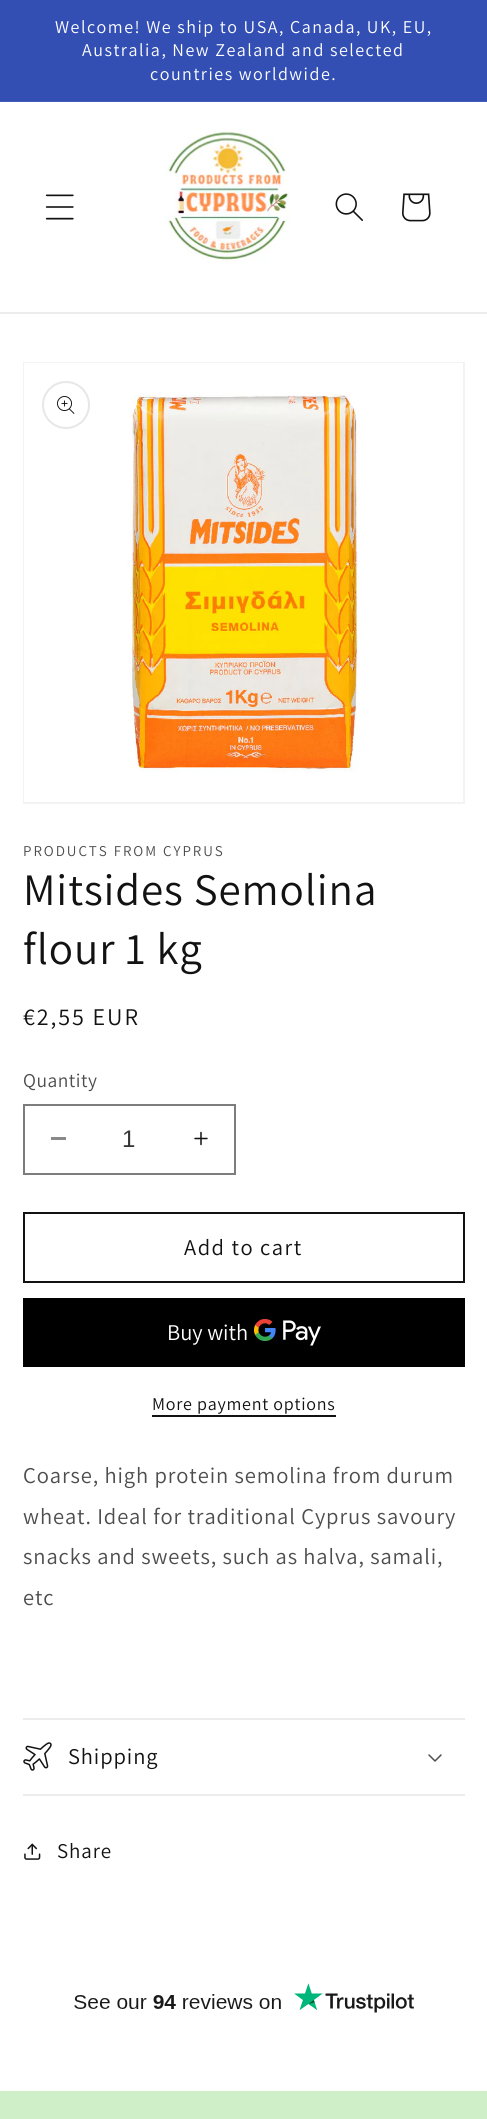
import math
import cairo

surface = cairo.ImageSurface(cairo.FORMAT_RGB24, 487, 2119)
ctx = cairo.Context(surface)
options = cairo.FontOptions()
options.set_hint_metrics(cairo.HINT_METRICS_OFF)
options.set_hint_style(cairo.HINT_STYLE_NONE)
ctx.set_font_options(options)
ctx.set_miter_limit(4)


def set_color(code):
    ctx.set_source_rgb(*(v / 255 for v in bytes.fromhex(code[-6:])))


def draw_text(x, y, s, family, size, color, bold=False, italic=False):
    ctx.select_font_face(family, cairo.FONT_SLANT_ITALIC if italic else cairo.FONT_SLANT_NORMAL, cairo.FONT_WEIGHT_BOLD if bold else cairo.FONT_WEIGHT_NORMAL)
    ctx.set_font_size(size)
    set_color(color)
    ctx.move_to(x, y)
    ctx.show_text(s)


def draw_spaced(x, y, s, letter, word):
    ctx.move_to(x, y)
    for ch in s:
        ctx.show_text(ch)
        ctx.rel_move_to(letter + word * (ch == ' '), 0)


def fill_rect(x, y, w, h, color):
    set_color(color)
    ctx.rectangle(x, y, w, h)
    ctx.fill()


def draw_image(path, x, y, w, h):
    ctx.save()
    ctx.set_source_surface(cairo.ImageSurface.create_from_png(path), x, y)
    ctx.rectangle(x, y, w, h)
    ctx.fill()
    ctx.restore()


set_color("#ffffff")
ctx.paint()
fill_rect(0, 0, 487, 101, "#334fb4")
fill_rect(0, 101, 487, 1, "#435dba")
ctx.select_font_face("Assistant")
ctx.set_font_size(18)
set_color("#ffffff")
draw_spaced(55, 33, "Welcome! We ship to USA, Canada, UK, EU,", 1.5, 0)
draw_spaced(82, 56, "Australia, New Zealand and selected", 1.5, 0)
draw_spaced(150, 80, "countries worldwide.", 1.5, 0)
fill_rect(0, 312, 487, 2, "#ececec")
draw_image("assets/img1.png", 45, 194, 29, 26)
draw_image("assets/img2.png", 165, 128, 125, 135)
draw_image("assets/img3.png", 335, 193, 28, 28)
draw_image("assets/img4.png", 402, 193, 29, 29)
ctx.rectangle(24, 363, 440, 440)
set_color("#f3f3f3")
ctx.stroke()
draw_image("assets/img5.png", 24, 363, 439, 439)
ctx.arc(66, 405, 23, 0, 2 * math.pi)
set_color("#e7e7e7")
ctx.stroke()
draw_image("assets/img6.png", 57, 396, 18, 18)
ctx.set_font_size(15)
set_color("#4d4d4d")
draw_spaced(23, 856, "PRODUCTS FROM CYPRUS", 1.95, 0)
ctx.set_font_size(45)
set_color("#121212")
draw_spaced(23, 905, "Mitsides Semolina", 0.9, 0)
draw_spaced(23, 964, "flour 1 kg", 0.9, 0)
ctx.set_font_size(24)
draw_spaced(23, 1025, "€2,55 EUR", 1.95, 0)
ctx.set_font_size(19.5)
set_color("#4d4d4d")
draw_spaced(23, 1087, "Quantity", 0.5, 0)
fill_rect(51, 1137, 15, 3, "#898989")
draw_image("assets/img7.png", 194, 1131, 14, 15)
ctx.rectangle(24, 1105, 211, 69)
set_color("#7d7d7d")
ctx.stroke()
draw_text(122, 1147, "1", "Liberation Sans", 24, "#363636")
ctx.rectangle(24, 1213, 440, 69)
set_color("#121212")
ctx.stroke()
ctx.select_font_face("Assistant")
ctx.set_font_size(22.5)
draw_spaced(184, 1255, "Add to cart", 1.5, 0)
fill_rect(23, 1298, 442, 69, "#000000")
draw_text(167, 1340, "Buy with", "Assistant", 22.5, "#ffffff")
draw_image("assets/img8.png", 254, 1319, 67, 27)
ctx.set_font_size(18)
set_color("#121212")
draw_spaced(152, 1410, "More payment options", 0.75, 0)
fill_rect(152, 1415, 184, 2, "#121212")
ctx.set_font_size(22.5)
set_color("#4d4d4d")
draw_spaced(23, 1483, "Coarse, high protein semolina from durum", 0.9, 0)
draw_spaced(23, 1524, "wheat. Ideal for traditional Cyprus savoury", 0.9, 0)
draw_spaced(23, 1564, "snacks and sweets, such as halva, samali,", 0.9, 0)
draw_spaced(23, 1605, "etc", 0.9, 0)
fill_rect(23, 1718, 442, 2, "#ececec")
fill_rect(23, 1794, 442, 2, "#ececec")
draw_image("assets/img9.png", 23, 1742, 29, 29)
set_color("#121212")
draw_spaced(68, 1764, "Shipping", 0.9, 0)
draw_image("assets/img10.png", 428, 1754, 14, 8)
draw_image("assets/img11.png", 24, 1843, 17, 17)
ctx.set_font_size(21)
draw_spaced(57, 1858, "Share", 0.9, 0)
draw_image("assets/img12.png", 74, 1983, 340, 30)
gradient = cairo.LinearGradient(244, 2091, 244, 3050)
gradient.add_color_stop_rgba(0, 0.808, 0.937, 0.78, 1)
gradient.add_color_stop_rgba(1, 1, 1, 1, 1)
ctx.set_source(gradient)
ctx.rectangle(0, 2091, 487, 28)
ctx.fill()
surface.write_to_png("output.png")
